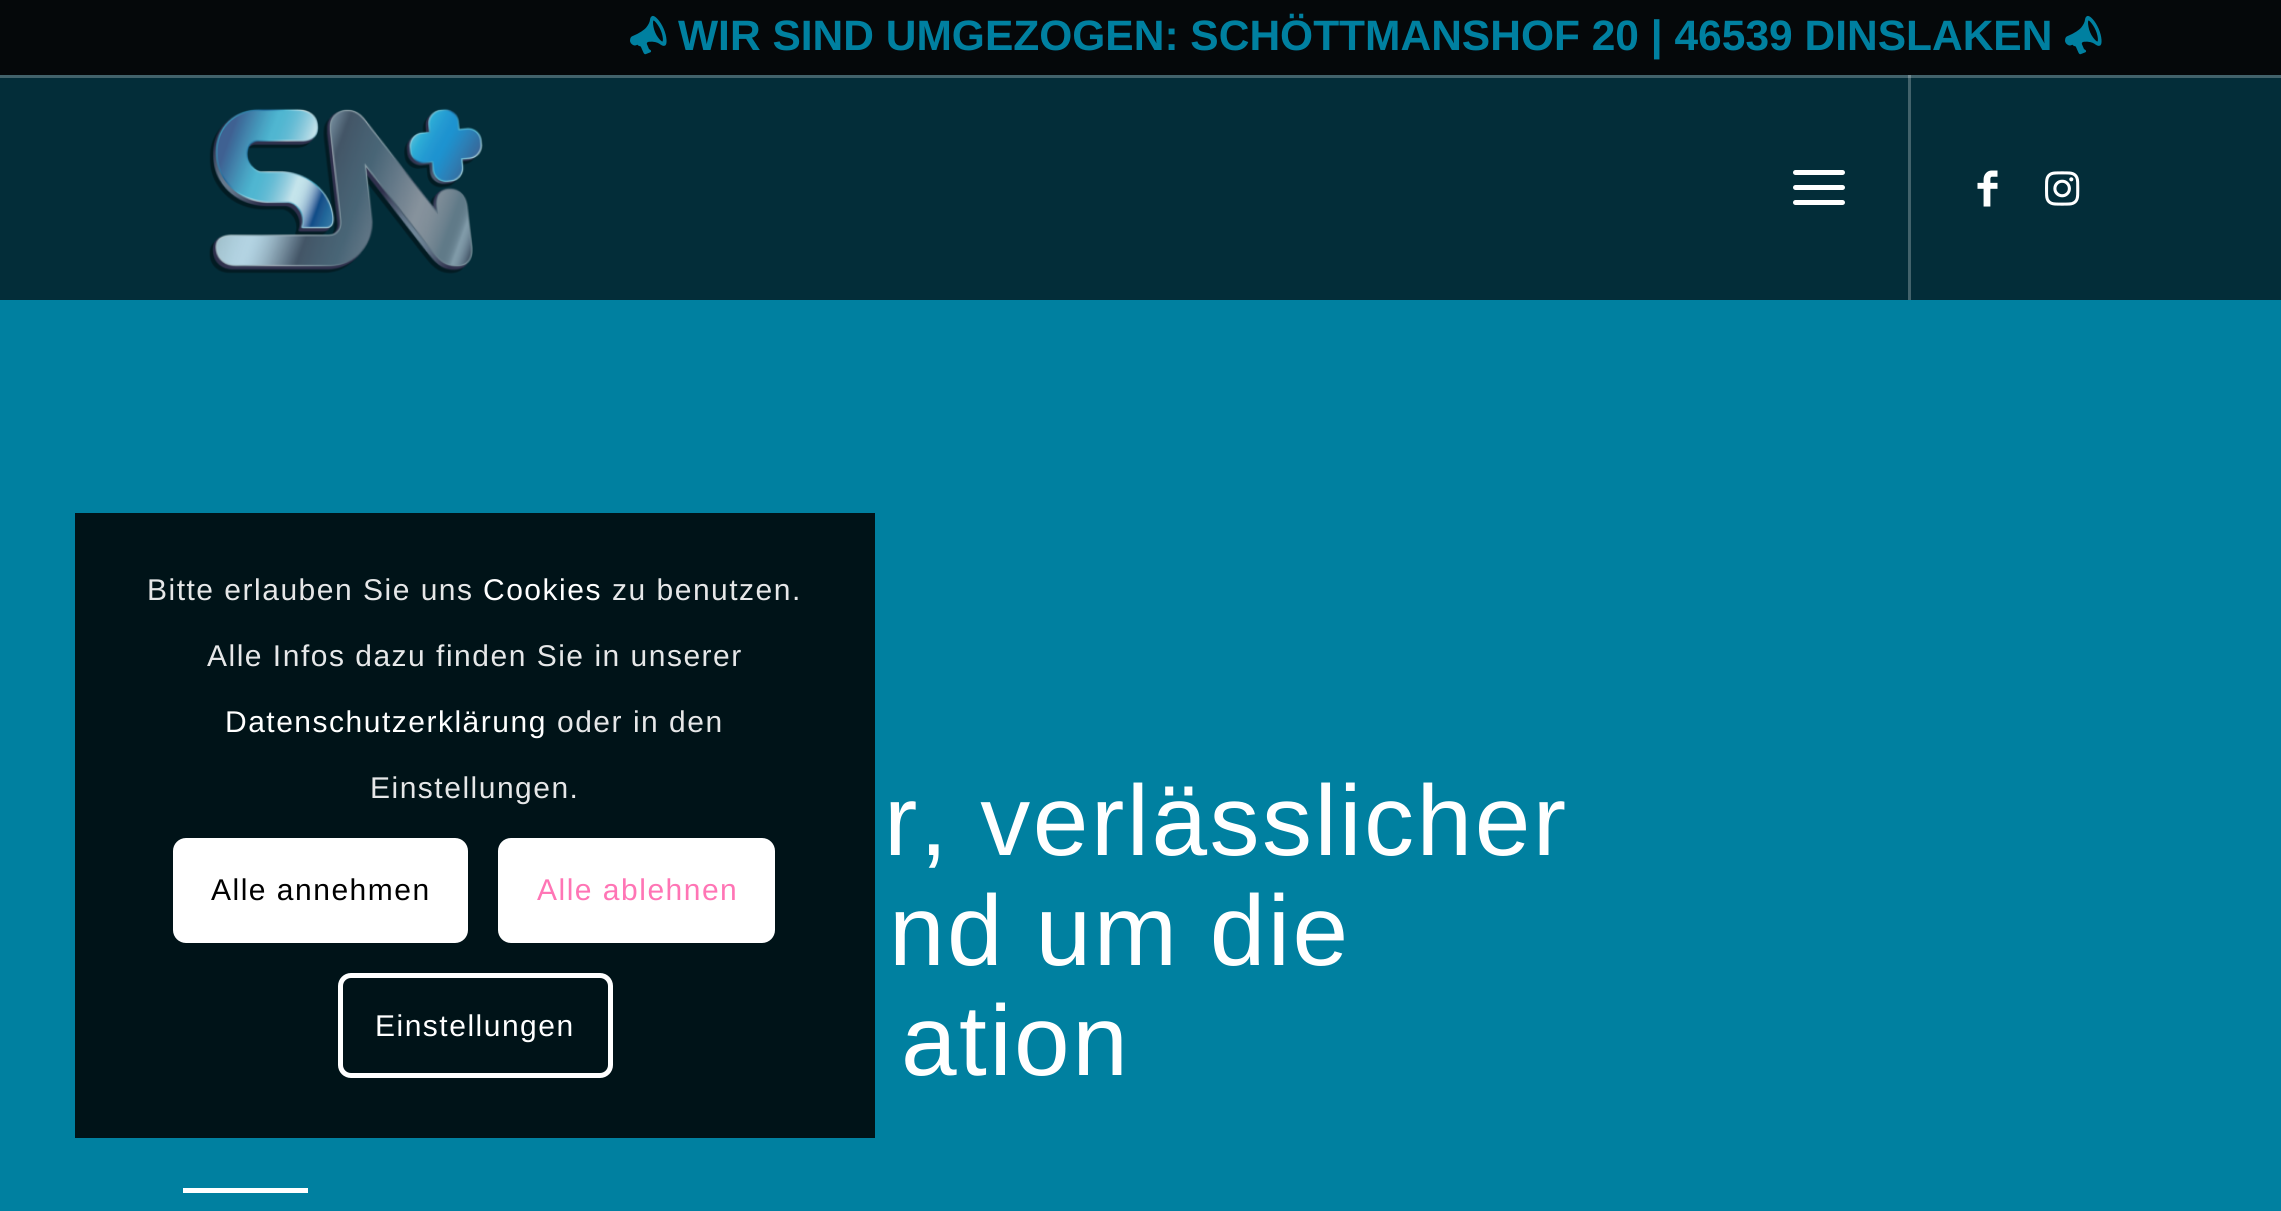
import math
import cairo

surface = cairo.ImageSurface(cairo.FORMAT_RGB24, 2281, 1211)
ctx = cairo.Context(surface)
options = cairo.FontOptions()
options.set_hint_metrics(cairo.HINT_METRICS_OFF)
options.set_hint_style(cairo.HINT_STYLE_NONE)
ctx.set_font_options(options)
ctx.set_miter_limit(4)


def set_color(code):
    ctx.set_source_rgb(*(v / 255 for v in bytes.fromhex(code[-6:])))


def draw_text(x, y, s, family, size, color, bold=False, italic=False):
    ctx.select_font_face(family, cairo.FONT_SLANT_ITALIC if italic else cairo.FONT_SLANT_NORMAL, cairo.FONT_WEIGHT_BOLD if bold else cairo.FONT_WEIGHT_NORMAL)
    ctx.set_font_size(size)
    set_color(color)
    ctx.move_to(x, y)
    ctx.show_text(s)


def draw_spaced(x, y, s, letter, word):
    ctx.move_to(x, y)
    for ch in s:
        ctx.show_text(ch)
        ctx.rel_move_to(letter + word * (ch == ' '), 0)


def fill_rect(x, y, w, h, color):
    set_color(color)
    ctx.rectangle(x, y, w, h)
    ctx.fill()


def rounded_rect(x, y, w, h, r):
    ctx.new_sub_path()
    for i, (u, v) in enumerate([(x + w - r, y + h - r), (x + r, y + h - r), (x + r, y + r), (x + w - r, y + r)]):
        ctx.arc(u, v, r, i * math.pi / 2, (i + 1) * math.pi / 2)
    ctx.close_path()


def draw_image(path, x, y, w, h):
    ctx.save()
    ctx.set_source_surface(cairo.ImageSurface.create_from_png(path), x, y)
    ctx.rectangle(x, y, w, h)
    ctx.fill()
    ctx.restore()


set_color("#0080a0")
ctx.paint()
ctx.set_source_rgba(0, 0, 0, 0.85)
ctx.rectangle(75, 513, 800, 625)
ctx.fill()
ctx.select_font_face("Liberation Sans")
ctx.set_font_size(30)
set_color("#e6e7e8")
draw_spaced(147, 600, "Bitte erlauben Sie uns", 1.5, 0)
set_color("#ffffff")
draw_spaced(483, 600, "Cookies", 1.5, 0)
set_color("#e6e7e8")
draw_spaced(612, 600, "zu benutzen.", 1.5, 0)
draw_spaced(207, 666, "Alle Infos dazu finden Sie in unserer", 1.5, 0)
set_color("#ffffff")
draw_spaced(225, 732, "Datenschutzerklärung", 1.5, 0)
set_color("#e6e7e8")
draw_spaced(557, 732, "oder in den", 1.5, 0)
draw_spaced(370, 798, "Einstellungen.", 1.5, 0)
set_color("#ffffff")
rounded_rect(173, 838, 295, 105, 13)
ctx.fill()
set_color("#000000")
draw_spaced(211, 900, "Alle annehmen", 1.5, 0)
set_color("#ffffff")
rounded_rect(500.5, 840.5, 272, 100, 10.5)
ctx.fill_preserve()
ctx.set_line_width(5)
ctx.stroke()
set_color("#ff75b5")
draw_spaced(537, 900, "Alle ablehnen", 1.5, 0)
rounded_rect(340.5, 975.5, 270, 100, 10.5)
set_color("#ffffff")
ctx.stroke()
draw_spaced(375, 1036, "Einstellungen", 1.5, 0)
fill_rect(0, 0, 2281, 75, "#05080a")
draw_image("assets/img1.png", 630, 15, 37, 40)
draw_text(678, 50, "WIR SIND UMGEZOGEN: SCHÖTTMANSHOF 20 | 46539 DINSLAKEN", "Liberation Sans", 42.5, "#0080a0", bold=True)
draw_image("assets/img1.png", 2065, 15, 37, 40)
fill_rect(0, 78, 2281, 222, "#032d39")
fill_rect(0, 75, 2281, 3, "#42626b")
draw_image("assets/img2.png", 209, 108, 274, 166)
fill_rect(1908, 75, 3, 225, "#42626b")
fill_rect(1908, 75, 3, 3, "#718990")
set_color("#ffffff")
rounded_rect(1793, 185, 52, 5, 2.5)
ctx.fill()
rounded_rect(1793, 170, 52, 5, 2.5)
ctx.fill()
rounded_rect(1793, 200, 52, 5, 2.5)
ctx.fill()
draw_image("assets/img3.png", 1977, 170, 21, 37)
draw_image("assets/img4.png", 2045, 171, 35, 35)
ctx.select_font_face("Liberation Sans")
ctx.set_font_size(100)
draw_spaced(884, 855, "r, verlässlicher", 2.5, 0)
draw_spaced(889, 965, "nd um die", 2.5, 0)
draw_spaced(901, 1075, "ation", 2.5, 0)
fill_rect(183, 1188, 125, 5, "#ffffff")
surface.write_to_png("output.png")
